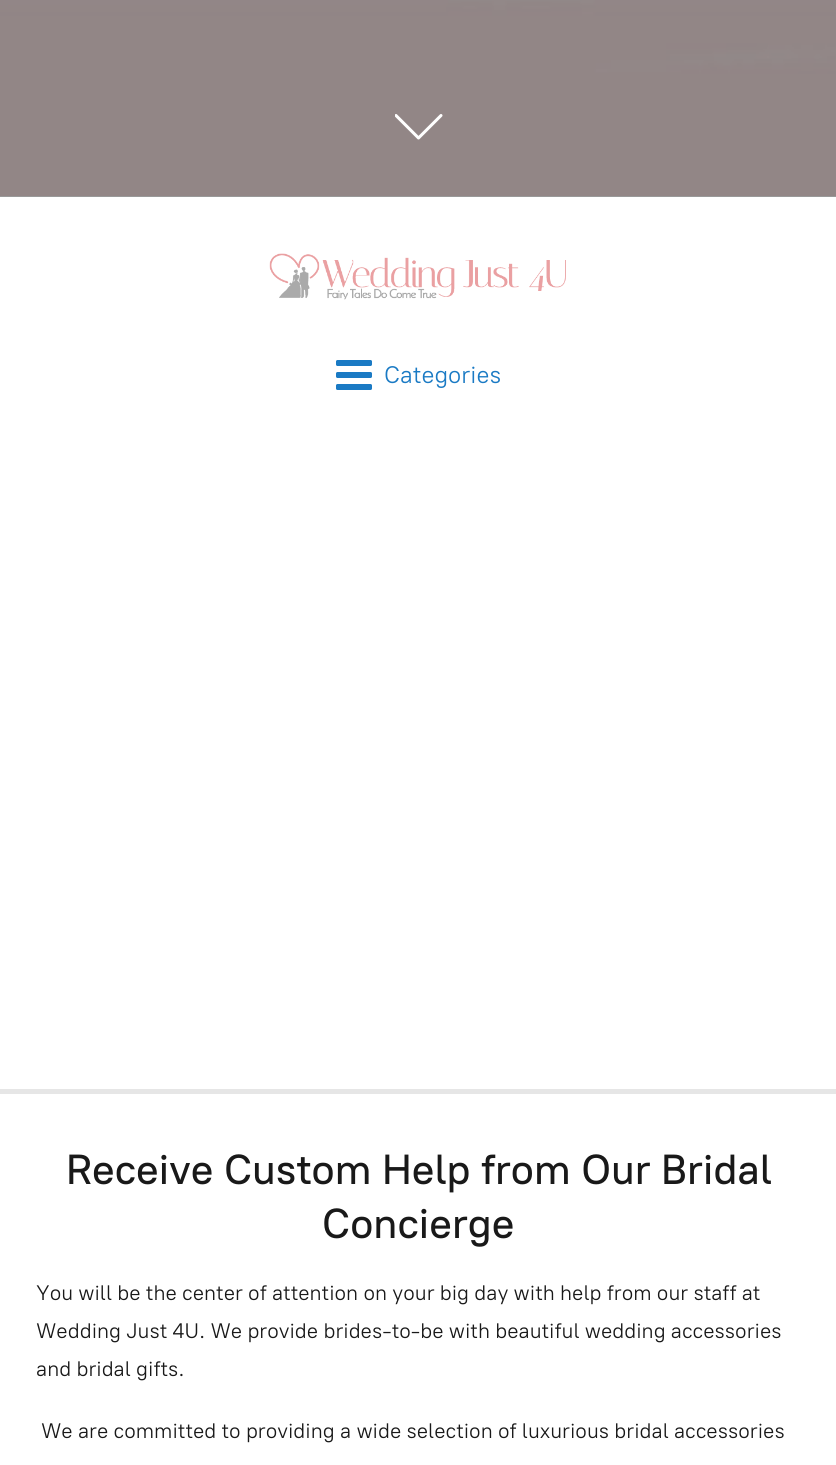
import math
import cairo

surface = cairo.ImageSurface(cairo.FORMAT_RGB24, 836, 1465)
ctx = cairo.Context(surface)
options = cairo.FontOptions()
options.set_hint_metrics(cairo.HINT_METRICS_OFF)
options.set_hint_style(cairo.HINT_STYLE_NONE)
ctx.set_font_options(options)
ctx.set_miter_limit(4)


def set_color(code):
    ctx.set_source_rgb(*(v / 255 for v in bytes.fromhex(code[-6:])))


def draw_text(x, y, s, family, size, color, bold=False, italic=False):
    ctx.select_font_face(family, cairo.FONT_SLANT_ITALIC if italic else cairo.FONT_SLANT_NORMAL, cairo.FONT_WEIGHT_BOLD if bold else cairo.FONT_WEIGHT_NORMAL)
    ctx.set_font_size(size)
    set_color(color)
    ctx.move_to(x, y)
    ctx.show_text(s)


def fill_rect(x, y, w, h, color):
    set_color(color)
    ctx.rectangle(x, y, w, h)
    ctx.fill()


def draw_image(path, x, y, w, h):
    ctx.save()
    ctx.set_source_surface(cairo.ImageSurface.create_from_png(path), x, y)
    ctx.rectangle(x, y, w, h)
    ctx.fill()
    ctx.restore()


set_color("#ffffff")
ctx.paint()
fill_rect(0, 0, 836, 197, "#999999")
draw_image("assets/img1.png", 0, 0, 836, 196)
ctx.save()
ctx.rectangle(395, 114, 48, 26)
ctx.clip()
ctx.new_path()
ctx.move_to(441, 115.5)
ctx.line_to(418.5, 138)
ctx.line_to(396, 115.5)
set_color("#ffffff")
ctx.set_line_width(3)
ctx.set_line_cap(cairo.LINE_CAP_ROUND)
ctx.set_line_join(cairo.LINE_JOIN_ROUND)
ctx.stroke()
ctx.restore()
draw_image("assets/img2.png", 269, 253, 297, 47)
draw_image("assets/img3.png", 336, 360, 36, 30)
draw_text(384, 383, "Categories", "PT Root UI", 24, "#1a7ac4")
fill_rect(0, 1089, 836, 5, "#e6e6e6")
draw_text(66, 1184, "Receive Custom Help from Our Bridal", "PT Root UI Medium", 42, "#191919")
draw_text(322, 1238, "Concierge", "PT Root UI Medium", 42, "#191919")
draw_text(36, 1300, "You will be the center of attention on your big day with help from our staff at", "PT Root UI", 21, "#191919")
draw_text(36, 1338, "Wedding Just 4U. We provide brides-to-be with beautiful wedding accessories", "PT Root UI", 21, "#191919")
draw_text(36, 1376, "and bridal gifts.", "PT Root UI", 21, "#191919")
draw_text(41, 1438, "We are committed to providing a wide selection of luxurious bridal accessories", "PT Root UI", 21, "#191919")
surface.write_to_png("output.png")
